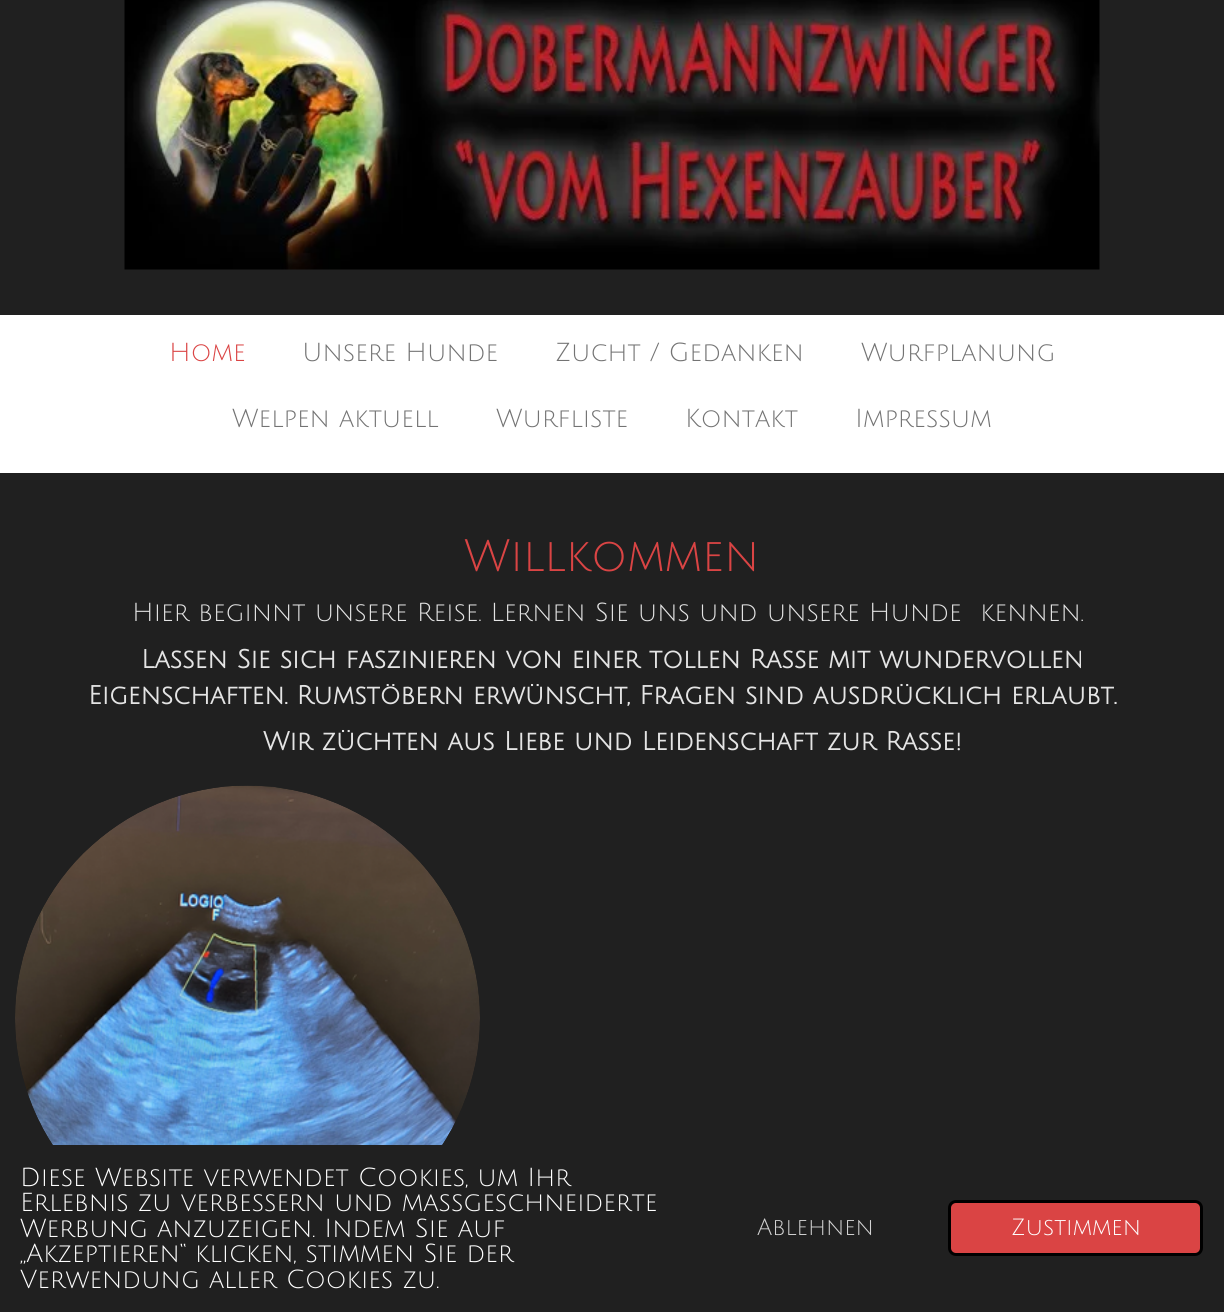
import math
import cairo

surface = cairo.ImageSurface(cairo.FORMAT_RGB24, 1224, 1312)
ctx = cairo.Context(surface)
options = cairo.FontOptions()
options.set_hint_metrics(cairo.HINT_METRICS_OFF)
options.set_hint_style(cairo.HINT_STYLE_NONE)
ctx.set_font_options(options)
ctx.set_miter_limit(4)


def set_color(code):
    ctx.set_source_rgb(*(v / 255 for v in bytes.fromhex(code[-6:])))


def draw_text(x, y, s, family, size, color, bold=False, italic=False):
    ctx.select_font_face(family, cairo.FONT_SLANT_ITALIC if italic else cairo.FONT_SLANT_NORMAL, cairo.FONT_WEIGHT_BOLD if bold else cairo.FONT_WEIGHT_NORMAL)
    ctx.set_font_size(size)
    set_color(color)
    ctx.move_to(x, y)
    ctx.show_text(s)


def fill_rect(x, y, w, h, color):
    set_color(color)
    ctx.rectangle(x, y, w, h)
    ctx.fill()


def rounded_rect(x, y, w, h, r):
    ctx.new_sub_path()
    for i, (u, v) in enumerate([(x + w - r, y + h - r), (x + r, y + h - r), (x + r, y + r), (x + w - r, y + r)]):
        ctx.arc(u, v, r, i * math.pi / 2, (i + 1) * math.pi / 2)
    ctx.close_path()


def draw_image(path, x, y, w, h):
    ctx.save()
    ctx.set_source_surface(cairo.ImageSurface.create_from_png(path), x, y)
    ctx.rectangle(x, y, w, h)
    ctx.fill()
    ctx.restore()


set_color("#202020")
ctx.paint()
draw_image("assets/img1.png", 124, 0, 976, 270)
fill_rect(0, 315, 1224, 158, "#ffffff")
draw_text(169, 361, "Home", "Julius Sans One", 25.5, "#da4444")
draw_text(302, 361, "Unsere Hunde", "Julius Sans One", 25.5, "#737373")
draw_text(555, 361, "Zucht / Gedanken", "Julius Sans One", 25.5, "#737373")
draw_text(861, 361, "Wurfplanung", "Julius Sans One", 25.5, "#737373")
draw_text(232, 427, "Welpen aktuell", "Julius Sans One", 25.5, "#737373")
draw_text(496, 427, "Wurfliste", "Julius Sans One", 25.5, "#737373")
draw_text(685, 427, "Kontakt", "Julius Sans One", 25.5, "#737373")
draw_text(855, 427, "Impressum", "Julius Sans One", 25.5, "#737373")
draw_text(464, 571, "Willkommen", "Julius Sans One", 44.5, "#da4444")
draw_text(132, 621, "Hier beginnt unsere Reise. Lernen Sie uns und unsere Hunde  kennen.", "Julius Sans One", 25.5, "#e4e4e4")
draw_text(141, 668, "Lassen Sie sich faszinieren von einer tollen Rasse mit wundervollen", "Julius Sans One", 25.5, "#e4e4e4", bold=True)
draw_text(88, 704, "Eigenschaften. Rumstöbern erwünscht, Fragen sind ausdrücklich erlaubt.", "Julius Sans One", 25.5, "#e4e4e4", bold=True)
draw_text(263, 750, "Wir züchten aus Liebe und Leidenschaft zur Rasse!", "Julius Sans One", 25.5, "#e4e4e4", bold=True)
draw_image("assets/img2.png", 15, 785, 465, 360)
draw_text(20, 1186, "Diese Website verwendet Cookies, um Ihr", "Julius Sans One", 25.5, "#ffffff")
draw_text(20, 1211, "Erlebnis zu verbessern und maßgeschneiderte", "Julius Sans One", 25.5, "#ffffff")
draw_text(20, 1237, "Werbung anzuzeigen. Indem Sie auf", "Julius Sans One", 25.5, "#ffffff")
draw_text(20, 1262, "„Akzeptieren“ klicken, stimmen Sie der", "Julius Sans One", 25.5, "#ffffff")
draw_text(20, 1288, "Verwendung aller Cookies zu.", "Julius Sans One", 25.5, "#ffffff")
draw_text(757, 1235, "Ablehnen", "Julius Sans One", 23, "#d3d3d3")
set_color("#da4444")
rounded_rect(949.5, 1201.5, 252, 53, 6.5)
ctx.fill_preserve()
set_color("#000000")
ctx.set_line_width(3)
ctx.stroke()
draw_text(1011, 1235, "Zustimmen", "Julius Sans One", 23, "#ffffff")
surface.write_to_png("output.png")
